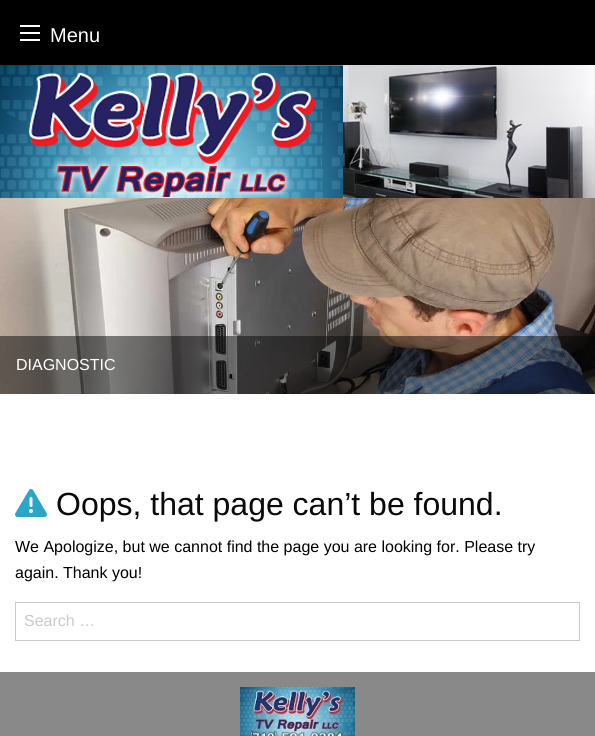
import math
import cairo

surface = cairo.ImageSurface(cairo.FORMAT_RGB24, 595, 736)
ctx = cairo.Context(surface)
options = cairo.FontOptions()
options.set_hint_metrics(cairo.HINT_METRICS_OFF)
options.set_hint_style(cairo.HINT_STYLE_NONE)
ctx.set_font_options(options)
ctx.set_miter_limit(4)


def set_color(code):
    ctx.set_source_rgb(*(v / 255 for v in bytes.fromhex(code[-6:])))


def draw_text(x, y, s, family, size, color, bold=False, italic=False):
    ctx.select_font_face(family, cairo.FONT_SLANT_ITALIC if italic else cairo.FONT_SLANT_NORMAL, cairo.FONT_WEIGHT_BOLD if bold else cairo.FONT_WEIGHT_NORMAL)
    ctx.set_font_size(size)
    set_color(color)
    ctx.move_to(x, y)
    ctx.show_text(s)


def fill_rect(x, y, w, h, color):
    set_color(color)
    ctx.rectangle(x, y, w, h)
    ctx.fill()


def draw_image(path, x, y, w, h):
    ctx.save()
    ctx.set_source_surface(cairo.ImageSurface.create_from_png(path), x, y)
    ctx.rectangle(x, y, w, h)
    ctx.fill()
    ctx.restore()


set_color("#ffffff")
ctx.paint()
fill_rect(0, 0, 595, 65, "#000000")
fill_rect(20, 39, 20, 2, "#fefefe")
fill_rect(20, 32, 20, 2, "#fefefe")
fill_rect(20, 25, 20, 2, "#fefefe")
draw_text(50, 42, "Menu", "Liberation Sans", 20, "#ffffff")
draw_image("assets/img1.png", 343, 65, 252, 133)
draw_image("assets/img2.png", 0, 65, 343, 133)
draw_image("assets/img3.png", 0, 198, 595, 196)
ctx.set_source_rgba(0.039, 0.039, 0.039, 0.5)
ctx.rectangle(0, 336, 595, 58)
ctx.fill()
draw_text(16, 370, "DIAGNOSTIC", "Liberation Sans", 16, "#ffffff")
draw_image("assets/img4.png", 15, 489, 32, 28)
draw_text(56, 515, "Oops, that page can’t be found.", "Liberation Sans", 32, "#0a0a0a")
draw_text(15, 552, "We Apologize, but we cannot find the page you are looking for. Please try", "Liberation Sans", 16, "#000000")
draw_text(15, 578, "again. Thank you!", "Liberation Sans", 16, "#000000")
ctx.rectangle(15.5, 602.5, 564, 38)
set_color("#cacaca")
ctx.set_line_width(1)
ctx.stroke()
draw_text(24, 626, "Search …", "Liberation Sans", 16, "#cacaca")
fill_rect(0, 672, 595, 64, "#898989")
draw_image("assets/img5.png", 240, 687, 115, 49)
surface.write_to_png("output.png")
